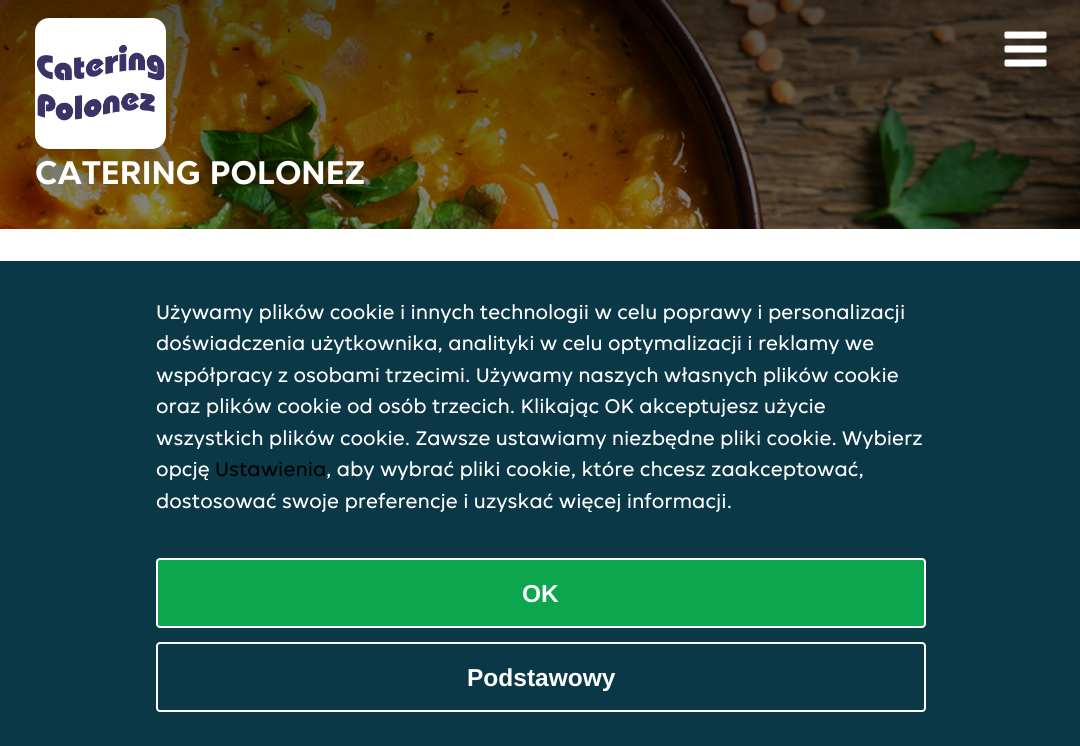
import math
import cairo

surface = cairo.ImageSurface(cairo.FORMAT_RGB24, 1080, 746)
ctx = cairo.Context(surface)
options = cairo.FontOptions()
options.set_hint_metrics(cairo.HINT_METRICS_OFF)
options.set_hint_style(cairo.HINT_STYLE_NONE)
ctx.set_font_options(options)
ctx.set_miter_limit(4)


def set_color(code):
    ctx.set_source_rgb(*(v / 255 for v in bytes.fromhex(code[-6:])))


def draw_text(x, y, s, family, size, color, bold=False, italic=False):
    ctx.select_font_face(family, cairo.FONT_SLANT_ITALIC if italic else cairo.FONT_SLANT_NORMAL, cairo.FONT_WEIGHT_BOLD if bold else cairo.FONT_WEIGHT_NORMAL)
    ctx.set_font_size(size)
    set_color(color)
    ctx.move_to(x, y)
    ctx.show_text(s)


def fill_rect(x, y, w, h, color):
    set_color(color)
    ctx.rectangle(x, y, w, h)
    ctx.fill()


def rounded_rect(x, y, w, h, r):
    ctx.new_sub_path()
    for i, (u, v) in enumerate([(x + w - r, y + h - r), (x + r, y + h - r), (x + r, y + r), (x + w - r, y + r)]):
        ctx.arc(u, v, r, i * math.pi / 2, (i + 1) * math.pi / 2)
    ctx.close_path()


def draw_image(path, x, y, w, h):
    ctx.save()
    ctx.set_source_surface(cairo.ImageSurface.create_from_png(path), x, y)
    ctx.rectangle(x, y, w, h)
    ctx.fill()
    ctx.restore()


set_color("#ffffff")
ctx.paint()
draw_image("assets/img1.png", 0, 0, 1080, 229)
gradient = cairo.LinearGradient(541, 0, 541, 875)
gradient.add_color_stop_rgba(0, 0, 0, 0, 0.7)
gradient.add_color_stop_rgba(0.33, 0, 0, 0, 0.4)
gradient.add_color_stop_rgba(0.67, 0, 0, 0, 0.2)
gradient.add_color_stop_rgba(1, 0, 0, 0, 0)
ctx.set_source(gradient)
ctx.rectangle(0, 0, 1080, 229)
ctx.fill()
draw_image("assets/img2.png", 1004, 31, 43, 36)
set_color("#ffffff")
rounded_rect(35, 18, 131, 131, 14)
ctx.fill()
draw_image("assets/img3.png", 36, 44, 129, 77)
draw_text(35, 184, "CATERING POLONEZ", "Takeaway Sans", 35, "#ffffff", bold=True)
fill_rect(0, 261, 1080, 485, "#0a3847")
draw_text(156, 319, "Używamy plików cookie i innych technologii w celu poprawy i personalizacji", "Takeaway Sans", 21, "#ffffff")
draw_text(156, 350, "doświadczenia użytkownika, analityki w celu optymalizacji i reklamy we", "Takeaway Sans", 21, "#ffffff")
draw_text(156, 382, "współpracy z osobami trzecimi. Używamy naszych własnych plików cookie", "Takeaway Sans", 21, "#ffffff")
draw_text(156, 413, "oraz plików cookie od osób trzecich. Klikając OK akceptujesz użycie", "Takeaway Sans", 21, "#ffffff")
draw_text(156, 445, "wszystkich plików cookie. Zawsze ustawiamy niezbędne pliki cookie. Wybierz", "Takeaway Sans", 21, "#ffffff")
draw_text(156, 476, "opcję", "Takeaway Sans", 21, "#ffffff")
draw_text(215, 476, "Ustawienia", "Takeaway Sans", 21, "#000000")
draw_text(326, 476, ", aby wybrać pliki cookie, które chcesz zaakceptować,", "Takeaway Sans", 21, "#ffffff")
draw_text(156, 508, "dostosować swoje preferencje i uzyskać więcej informacji.", "Takeaway Sans", 21, "#ffffff")
set_color("#0ca64f")
rounded_rect(157, 559, 768, 68, 3)
ctx.fill_preserve()
set_color("#ffffff")
ctx.stroke()
draw_text(522, 602, "OK", "Liberation Sans", 24.5, "#ffffff", bold=True)
rounded_rect(157, 643, 768, 68, 3)
ctx.stroke()
draw_text(467, 686, "Podstawowy", "Liberation Sans", 24.5, "#ffffff", bold=True)
surface.write_to_png("output.png")
